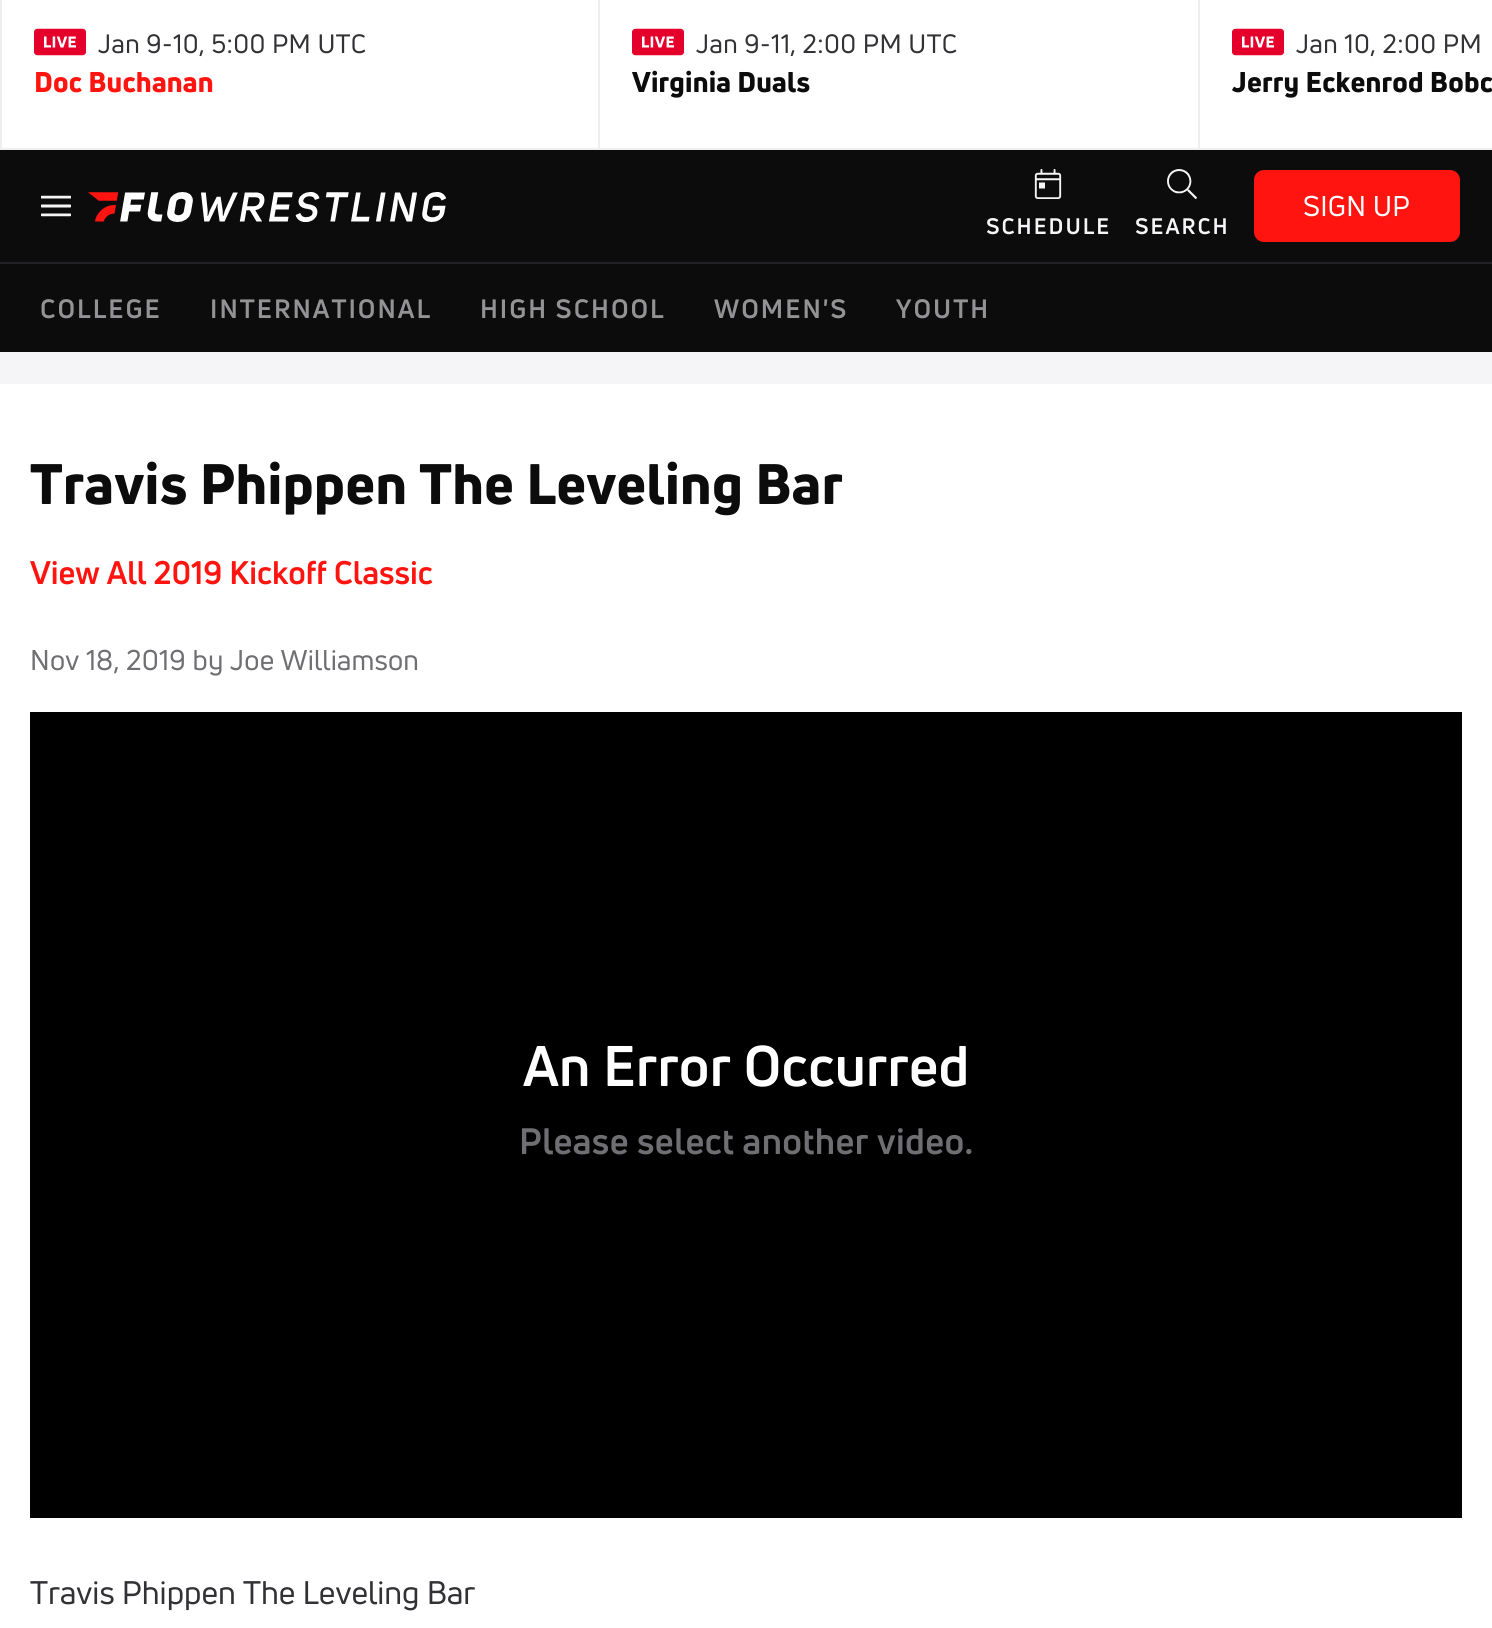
import math
import cairo

surface = cairo.ImageSurface(cairo.FORMAT_RGB24, 1492, 1628)
ctx = cairo.Context(surface)
options = cairo.FontOptions()
options.set_hint_metrics(cairo.HINT_METRICS_OFF)
options.set_hint_style(cairo.HINT_STYLE_NONE)
ctx.set_font_options(options)
ctx.set_miter_limit(4)


def set_color(code):
    ctx.set_source_rgb(*(v / 255 for v in bytes.fromhex(code[-6:])))


def draw_text(x, y, s, family, size, color, bold=False, italic=False):
    ctx.select_font_face(family, cairo.FONT_SLANT_ITALIC if italic else cairo.FONT_SLANT_NORMAL, cairo.FONT_WEIGHT_BOLD if bold else cairo.FONT_WEIGHT_NORMAL)
    ctx.set_font_size(size)
    set_color(color)
    ctx.move_to(x, y)
    ctx.show_text(s)


def draw_spaced(x, y, s, letter, word):
    ctx.move_to(x, y)
    for ch in s:
        ctx.show_text(ch)
        ctx.rel_move_to(letter + word * (ch == ' '), 0)


def fill_rect(x, y, w, h, color):
    set_color(color)
    ctx.rectangle(x, y, w, h)
    ctx.fill()


def rounded_rect(x, y, w, h, r):
    ctx.new_sub_path()
    for i, (u, v) in enumerate([(x + w - r, y + h - r), (x + r, y + h - r), (x + r, y + r), (x + w - r, y + r)]):
        ctx.arc(u, v, r, i * math.pi / 2, (i + 1) * math.pi / 2)
    ctx.close_path()


def draw_image(path, x, y, w, h):
    ctx.save()
    ctx.set_source_surface(cairo.ImageSurface.create_from_png(path), x, y)
    ctx.rectangle(x, y, w, h)
    ctx.fill()
    ctx.restore()


set_color("#f5f5f7")
ctx.paint()
fill_rect(0, 148, 1492, 2, "#eeeef0")
fill_rect(2, 0, 1490, 148, "#ffffff")
fill_rect(598, 0, 2, 148, "#eeeef0")
fill_rect(0, 0, 2, 148, "#eeeef0")
draw_image("assets/img1.png", 34, 28, 52, 28)
ctx.select_font_face("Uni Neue")
ctx.set_font_size(26)
set_color("#323236")
draw_spaced(98, 53, "Jan 9-10, 5:00 PM UTC", 0.4, 0)
ctx.select_font_face("Uni Neue Black")
ctx.set_font_size(28)
set_color("#ff140f")
draw_spaced(34, 92, "Doc Buchanan", 0.2, 0)
fill_rect(1198, 0, 2, 148, "#eeeef0")
draw_image("assets/img1.png", 632, 28, 52, 28)
ctx.select_font_face("Uni Neue")
ctx.set_font_size(26)
set_color("#323236")
draw_spaced(696, 53, "Jan 9-11, 2:00 PM UTC", 0.4, 0)
ctx.select_font_face("Uni Neue Black")
ctx.set_font_size(28)
set_color("#0c0c0c")
draw_spaced(632, 92, "Virginia Duals", 0.2, 0)
draw_image("assets/img1.png", 1232, 28, 52, 28)
ctx.select_font_face("Uni Neue")
ctx.set_font_size(26)
set_color("#323236")
draw_spaced(1296, 53, "Jan 10, 2:00 PM", 0.4, 0)
ctx.select_font_face("Uni Neue Black")
ctx.set_font_size(28)
set_color("#0c0c0c")
draw_spaced(1232, 92, "Jerry Eckenrod Bobc", 0.2, 0)
fill_rect(0, 150, 1492, 202, "#0c0c0c")
draw_image("assets/img2.png", 41, 195, 30, 22)
draw_image("assets/img3.png", 88, 192, 358, 30)
set_color("#ff140f")
rounded_rect(1255, 171, 204, 70, 9)
ctx.fill_preserve()
ctx.stroke()
ctx.select_font_face("Uni Neue")
set_color("#ffffff")
draw_spaced(1303, 216, "SIGN UP", 0.25, 0)
draw_image("assets/img4.png", 1034, 169, 28, 30)
ctx.select_font_face("Uni Neue", cairo.FONT_SLANT_NORMAL, cairo.FONT_WEIGHT_BOLD)
ctx.set_font_size(22)
set_color("#f5f5f7")
draw_spaced(986, 234, "SCHEDULE", 2, 0)
draw_image("assets/img5.png", 1167, 169, 30, 30)
draw_spaced(1135, 234, "SEARCH", 2, 0)
fill_rect(0, 262, 1492, 2, "#232327")
ctx.set_font_size(26)
set_color("#939396")
draw_spaced(40, 318, "COLLEGE", 2, 0)
draw_spaced(210, 318, "INTERNATIONAL", 2, 0)
draw_spaced(480, 318, "HIGH SCHOOL", 2, 0)
draw_spaced(714, 318, "WOMEN'S", 2, 0)
draw_spaced(896, 318, "YOUTH", 2, 0)
fill_rect(0, 384, 1492, 1244, "#ffffff")
ctx.select_font_face("Uni Neue Black")
ctx.set_font_size(55.8)
set_color("#0c0c0c")
draw_spaced(30, 504, "Travis Phippen The Leveling Bar", 0.4, 0)
draw_text(30, 584, "View All 2019 Kickoff Classic", "Uni Neue", 32, "#ff140f", bold=True)
ctx.select_font_face("Uni Neue")
ctx.set_font_size(28)
set_color("#6f6f73")
draw_spaced(30, 670, "Nov 18, 2019 by Joe Williamson", 0.2, 0)
fill_rect(30, 712, 1432, 806, "#000000")
ctx.select_font_face("Uni Neue", cairo.FONT_SLANT_NORMAL, cairo.FONT_WEIGHT_BOLD)
ctx.set_font_size(56)
set_color("#ffffff")
draw_spaced(523, 1086, "An Error Occurred", 0.2, 0)
ctx.set_font_size(36)
set_color("#6f6f73")
draw_spaced(519, 1154, "Please select another video.", 0.4, 0)
draw_text(30, 1604, "Travis Phippen The Leveling Bar", "Uni Neue", 32, "#323236")
surface.write_to_png("output.png")
